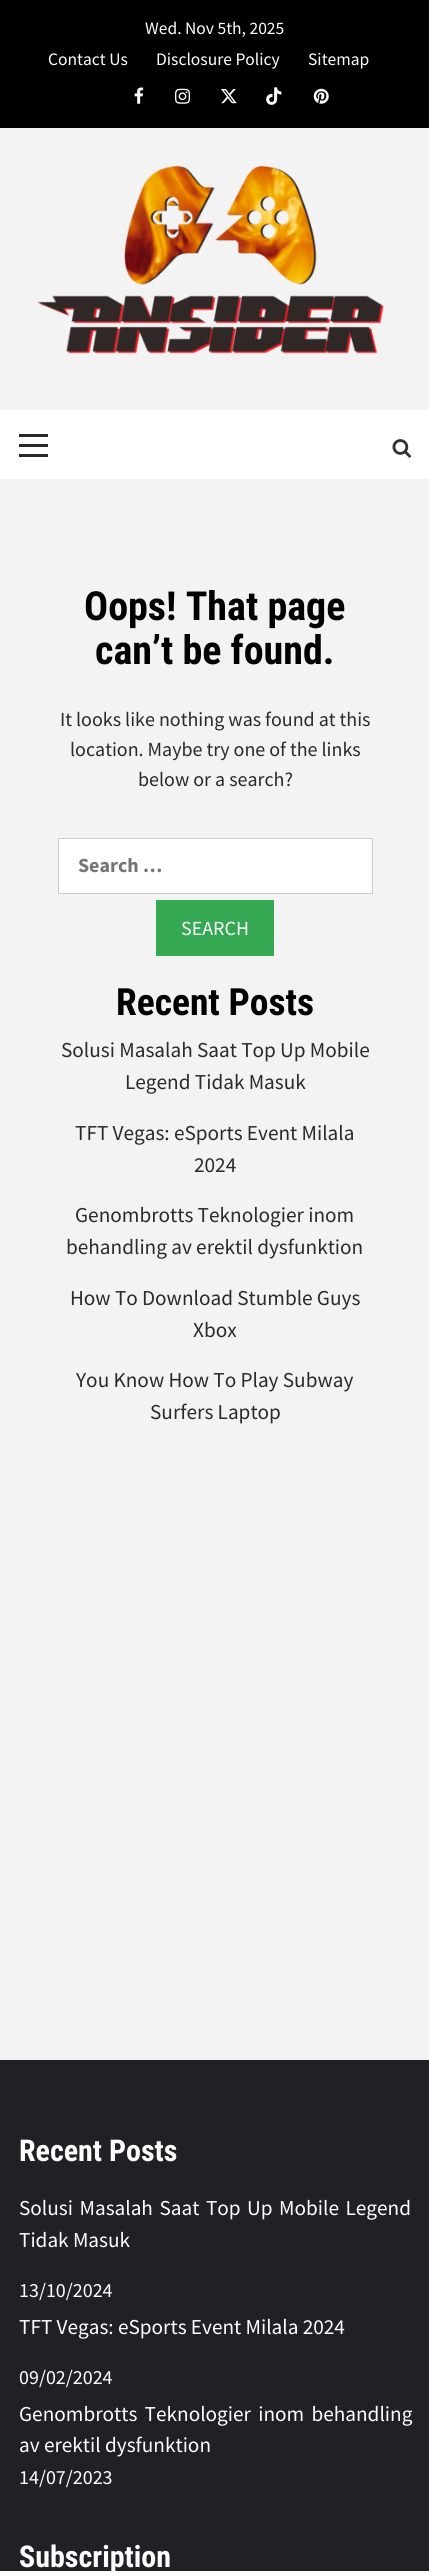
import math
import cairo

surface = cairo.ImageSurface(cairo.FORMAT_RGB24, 429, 2571)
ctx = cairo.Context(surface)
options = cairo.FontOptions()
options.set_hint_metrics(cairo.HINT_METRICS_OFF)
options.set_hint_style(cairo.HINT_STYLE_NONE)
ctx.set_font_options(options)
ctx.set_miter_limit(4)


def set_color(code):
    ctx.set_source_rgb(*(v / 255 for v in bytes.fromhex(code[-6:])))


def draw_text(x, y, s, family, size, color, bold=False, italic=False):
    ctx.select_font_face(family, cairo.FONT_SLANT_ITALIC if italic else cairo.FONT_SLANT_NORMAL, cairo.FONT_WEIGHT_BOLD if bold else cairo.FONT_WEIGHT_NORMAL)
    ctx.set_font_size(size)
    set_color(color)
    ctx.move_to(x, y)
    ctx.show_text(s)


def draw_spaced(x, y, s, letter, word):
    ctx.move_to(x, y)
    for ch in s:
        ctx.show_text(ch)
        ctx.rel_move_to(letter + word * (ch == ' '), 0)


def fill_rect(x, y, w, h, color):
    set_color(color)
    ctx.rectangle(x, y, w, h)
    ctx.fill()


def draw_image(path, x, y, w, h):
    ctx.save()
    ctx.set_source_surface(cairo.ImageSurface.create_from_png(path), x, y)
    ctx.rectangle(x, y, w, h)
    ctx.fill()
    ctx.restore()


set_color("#f3f3f3")
ctx.paint()
fill_rect(0, 0, 429, 128, "#000000")
draw_text(145, 34, "Wed. Nov 5th, 2025", "Source Sans Pro", 17.5, "#ffffff")
draw_text(48, 65, "Contact Us", "Source Sans Pro", 17.5, "#ffffff")
draw_text(156, 65, "Disclosure Policy", "Source Sans Pro", 17.5, "#ffffff")
draw_text(308, 65, "Sitemap", "Source Sans Pro", 17.5, "#ffffff")
draw_image("assets/img1.png", 134, 87, 10, 17)
draw_image("assets/img2.png", 175, 88, 15, 16)
draw_image("assets/img3.png", 221, 89, 16, 15)
draw_image("assets/img4.png", 266, 87, 16, 18)
draw_image("assets/img5.png", 313, 88, 16, 16)
draw_image("assets/img6.png", 37, 166, 347, 188)
fill_rect(0, 410, 429, 69, "#ffffff")
fill_rect(19, 444, 29, 3, "#282828")
fill_rect(19, 434, 29, 3, "#282828")
fill_rect(19, 454, 29, 3, "#282828")
draw_image("assets/img7.png", 392, 439, 20, 19)
draw_text(84, 620, "Oops! That page", "Roboto Condensed", 40, "#000000", bold=True)
draw_text(95, 664, "can’t be found.", "Roboto Condensed", 40, "#000000", bold=True)
draw_text(60, 726, "It looks like nothing was found at this", "Source Sans Pro", 20, "#2a2a2a")
draw_text(70, 756, "location. Maybe try one of the links", "Source Sans Pro", 20, "#2a2a2a")
draw_text(138, 786, "below or a search?", "Source Sans Pro", 20, "#2a2a2a")
set_color("#ffffff")
ctx.rectangle(58.5, 838.5, 314, 55)
ctx.fill_preserve()
set_color("#cccccc")
ctx.set_line_width(1)
ctx.stroke()
draw_text(78, 872, "Search …", "Source Sans Pro", 20, "#757575", bold=True)
fill_rect(156, 900, 118, 56, "#34a853")
draw_text(181, 935, "SEARCH", "Source Sans Pro", 20, "#ffffff")
draw_text(116, 1015, "Recent Posts", "Roboto Condensed", 37.5, "#000000", bold=True)
draw_text(61, 1057, "Solusi Masalah Saat Top Up Mobile", "Source Sans Pro", 21.25, "#2a2a2a")
draw_text(125, 1089, "Legend Tidak Masuk", "Source Sans Pro", 21.25, "#2a2a2a")
draw_text(75, 1140, "TFT Vegas: eSports Event Milala", "Source Sans Pro", 21.25, "#2a2a2a")
draw_text(194, 1172, "2024", "Source Sans Pro", 21.25, "#2a2a2a")
draw_text(75, 1222, "Genombrotts Teknologier inom", "Source Sans Pro", 21.25, "#2a2a2a")
draw_text(66, 1254, "behandling av erektil dysfunktion", "Source Sans Pro", 21.25, "#2a2a2a")
draw_text(70, 1305, "How To Download Stumble Guys", "Source Sans Pro", 21.25, "#2a2a2a")
draw_text(193, 1337, "Xbox", "Source Sans Pro", 21.25, "#2a2a2a")
draw_text(76, 1387, "You Know How To Play Subway", "Source Sans Pro", 21.25, "#2a2a2a")
draw_text(150, 1419, "Surfers Laptop", "Source Sans Pro", 21.25, "#2a2a2a")
fill_rect(0, 2060, 429, 511, "#1f2125")
draw_text(19, 2161, "Recent Posts", "Roboto Condensed", 30, "#ffffff", bold=True)
ctx.select_font_face("Source Sans Pro")
ctx.set_font_size(21.25)
draw_spaced(19, 2215, "Solusi Masalah Saat Top Up Mobile Legend", 0, 2.25)
draw_text(19, 2247, "Tidak Masuk", "Source Sans Pro", 21.25, "#ffffff")
draw_text(19, 2297, "13/10/2024", "Source Sans Pro", 20, "#ffffff")
draw_text(19, 2334, "TFT Vegas: eSports Event Milala 2024", "Source Sans Pro", 21.25, "#ffffff")
draw_text(19, 2384, "09/02/2024", "Source Sans Pro", 20, "#ffffff")
ctx.set_font_size(21.25)
draw_spaced(19, 2421, "Genombrotts Teknologier inom behandling", 0, 3)
draw_text(19, 2452, "av erektil dysfunktion", "Source Sans Pro", 21.25, "#ffffff")
draw_text(19, 2484, "14/07/2023", "Source Sans Pro", 20, "#ffffff")
draw_text(19, 2567, "Subscription", "Roboto Condensed", 30, "#ffffff", bold=True)
surface.write_to_png("output.png")
